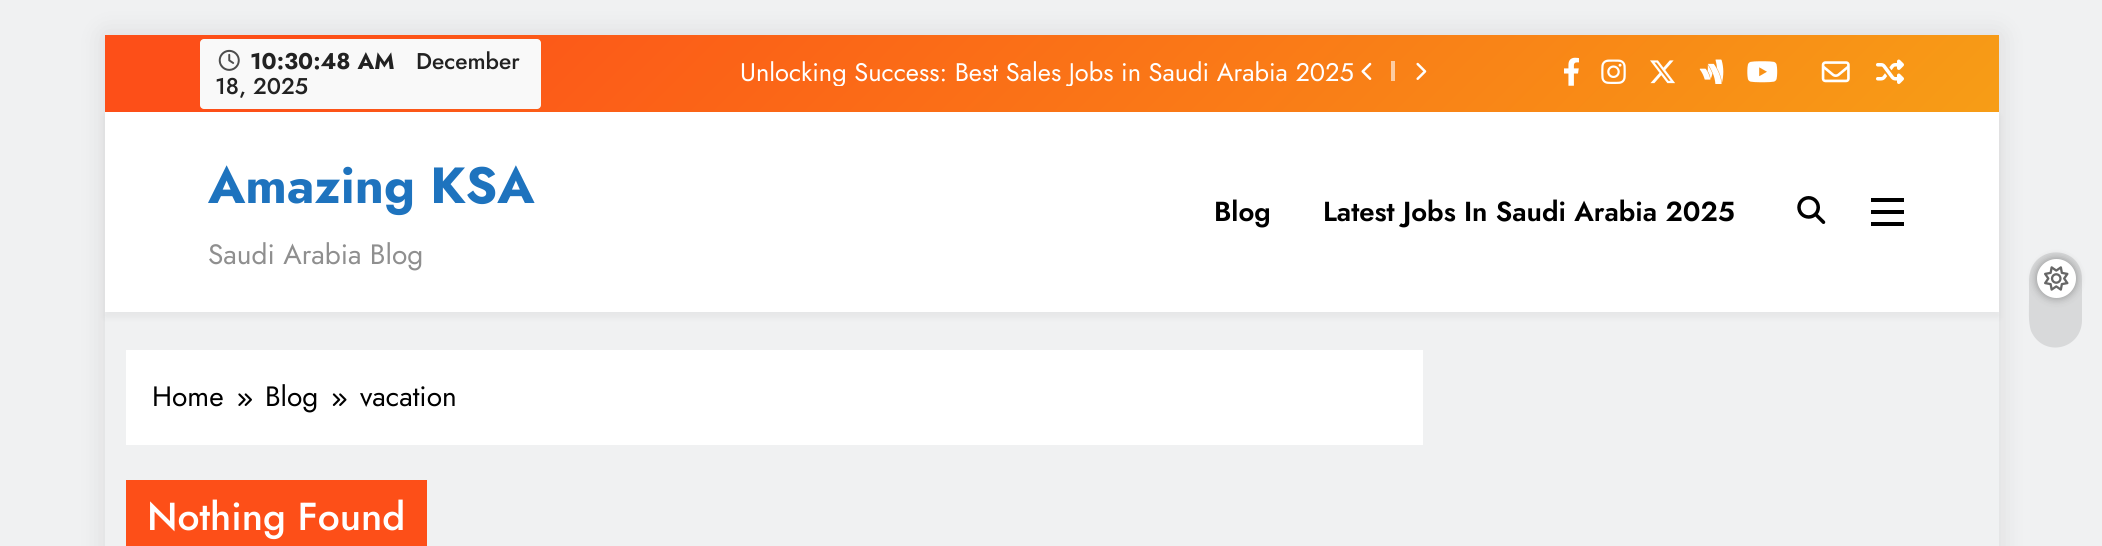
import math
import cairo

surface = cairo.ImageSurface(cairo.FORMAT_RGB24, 2102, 546)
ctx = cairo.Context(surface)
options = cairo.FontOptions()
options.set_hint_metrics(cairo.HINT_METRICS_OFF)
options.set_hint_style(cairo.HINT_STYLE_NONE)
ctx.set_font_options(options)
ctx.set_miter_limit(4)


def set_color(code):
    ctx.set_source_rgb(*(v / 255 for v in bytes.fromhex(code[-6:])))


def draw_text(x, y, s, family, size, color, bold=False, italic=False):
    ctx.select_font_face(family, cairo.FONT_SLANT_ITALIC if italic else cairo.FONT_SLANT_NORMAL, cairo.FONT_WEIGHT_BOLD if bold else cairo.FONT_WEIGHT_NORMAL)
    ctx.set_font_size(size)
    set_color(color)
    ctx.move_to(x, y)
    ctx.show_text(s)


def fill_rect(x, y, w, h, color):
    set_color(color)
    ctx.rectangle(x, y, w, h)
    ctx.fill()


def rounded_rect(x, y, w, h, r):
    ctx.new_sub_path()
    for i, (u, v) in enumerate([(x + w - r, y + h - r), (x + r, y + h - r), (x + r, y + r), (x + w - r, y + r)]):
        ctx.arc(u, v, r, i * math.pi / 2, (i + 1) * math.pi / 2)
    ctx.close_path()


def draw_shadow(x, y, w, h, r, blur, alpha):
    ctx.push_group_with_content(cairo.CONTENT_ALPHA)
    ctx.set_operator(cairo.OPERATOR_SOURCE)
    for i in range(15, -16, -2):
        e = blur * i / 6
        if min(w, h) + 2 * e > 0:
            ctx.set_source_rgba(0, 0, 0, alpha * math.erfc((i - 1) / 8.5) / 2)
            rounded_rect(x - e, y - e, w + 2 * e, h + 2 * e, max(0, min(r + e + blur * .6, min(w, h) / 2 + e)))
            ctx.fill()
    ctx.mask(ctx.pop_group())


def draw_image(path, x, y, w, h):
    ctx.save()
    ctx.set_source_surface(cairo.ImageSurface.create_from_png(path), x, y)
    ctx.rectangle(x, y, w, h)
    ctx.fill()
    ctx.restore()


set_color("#f0f1f2")
ctx.paint()
ctx.save()
ctx.set_fill_rule(cairo.FILL_RULE_EVEN_ODD)
ctx.new_path()
ctx.move_to(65, 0)
ctx.line_to(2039, 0)
ctx.line_to(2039, 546)
ctx.line_to(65, 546)
ctx.close_path()
ctx.move_to(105, 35)
ctx.line_to(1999, 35)
ctx.line_to(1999, 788)
ctx.line_to(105, 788)
ctx.close_path()
ctx.clip()
set_color("#000000")
draw_shadow(105, 35, 1894, 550, 0, 13, 0.1)
ctx.restore()
gradient = cairo.LinearGradient(559, -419, 1544, 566)
gradient.add_color_stop_rgba(0.1, 0.992, 0.31, 0.094, 1)
gradient.add_color_stop_rgba(1, 0.969, 0.616, 0.086, 1)
ctx.set_source(gradient)
ctx.rectangle(105, 35, 1894, 77)
ctx.fill()
set_color("#000000")
draw_shadow(105, 117, 1894, 200, 0, 3.5, 0.05)
set_color("#f9f9f9")
rounded_rect(200, 39, 341, 70, 4)
ctx.fill()
draw_image("assets/img1.png", 218, 49, 22, 22)
draw_text(250, 69, "10:30:48 AM", "Jost", 22.75, "#222222", bold=True)
draw_text(416, 69, "December", "Jost Medium", 22.75, "#222222")
draw_text(215, 94, "18, 2025", "Jost Medium", 22.75, "#222222")
ctx.save()
ctx.rectangle(541, 58, 814, 28)
ctx.clip()
draw_text(740, 81, "Unlocking Success: Best Sales Jobs in Saudi Arabia 2025", "Jost", 25.4, "#ffffff")
ctx.restore()
draw_image("assets/img2.png", 1361, 62, 11, 18)
fill_rect(1391, 61, 4, 20, "#fdcca2")
draw_image("assets/img3.png", 1416, 62, 11, 18)
draw_image("assets/img4.png", 1564, 57, 15, 29)
draw_image("assets/img5.png", 1601, 59, 25, 25)
draw_image("assets/img6.png", 1650, 60, 25, 24)
draw_image("assets/img7.png", 1699, 59, 25, 25)
draw_image("assets/img8.png", 1747, 61, 31, 22)
draw_image("assets/img9.png", 1821, 61, 29, 22)
draw_image("assets/img10.png", 1876, 59, 28, 25)
fill_rect(105, 112, 1894, 200, "#ffffff")
draw_text(208, 203, "Amazing KSA", "Jost", 50.75, "#1e73be", bold=True)
draw_text(208, 264, "Saudi Arabia Blog", "Jost", 28, "#8f8f8f")
draw_text(1214, 221, "Blog", "Jost SemiBold", 27.5, "#000000")
draw_text(1323, 221, "Latest Jobs In Saudi Arabia 2025", "Jost SemiBold", 27.5, "#000000")
draw_image("assets/img11.png", 1797, 196, 29, 28)
fill_rect(1871, 198, 33, 4, "#000000")
fill_rect(1871, 210, 33, 4, "#000000")
fill_rect(1871, 222, 33, 4, "#000000")
set_color("#d8d9da")
ctx.new_path()
ctx.move_to(2082, 279)
ctx.line_to(2082, 321)
ctx.curve_to(2081, 350, 2043, 358, 2031, 331)
ctx.curve_to(2028, 322, 2029, 309, 2029, 300)
ctx.line_to(2029, 279)
ctx.curve_to(2031, 243, 2082, 244, 2082, 279)
ctx.close_path()
ctx.fill()
set_color("#000000")
draw_shadow(2037, 259, 39, 39, 19.5, 4.5, 0.35)
set_color("#ffffff")
ctx.arc(2056.5, 278.5, 19.5, 0, 2 * math.pi)
ctx.fill()
draw_image("assets/img12.png", 2044, 266, 25, 25)
fill_rect(126, 350, 1297, 95, "#ffffff")
draw_text(152, 406, "Home", "Jost", 28, "#000000")
draw_image("assets/img13.png", 238, 393, 14, 13)
draw_text(265, 406, "Blog", "Jost", 28, "#000000")
draw_image("assets/img14.png", 332, 393, 15, 13)
draw_text(360, 406, "vacation", "Jost", 28, "#000000")
fill_rect(126, 480, 301, 66, "#fd4f18")
draw_text(147, 530, "Nothing Found", "Jost Medium", 39, "#ffffff")
surface.write_to_png("output.png")
